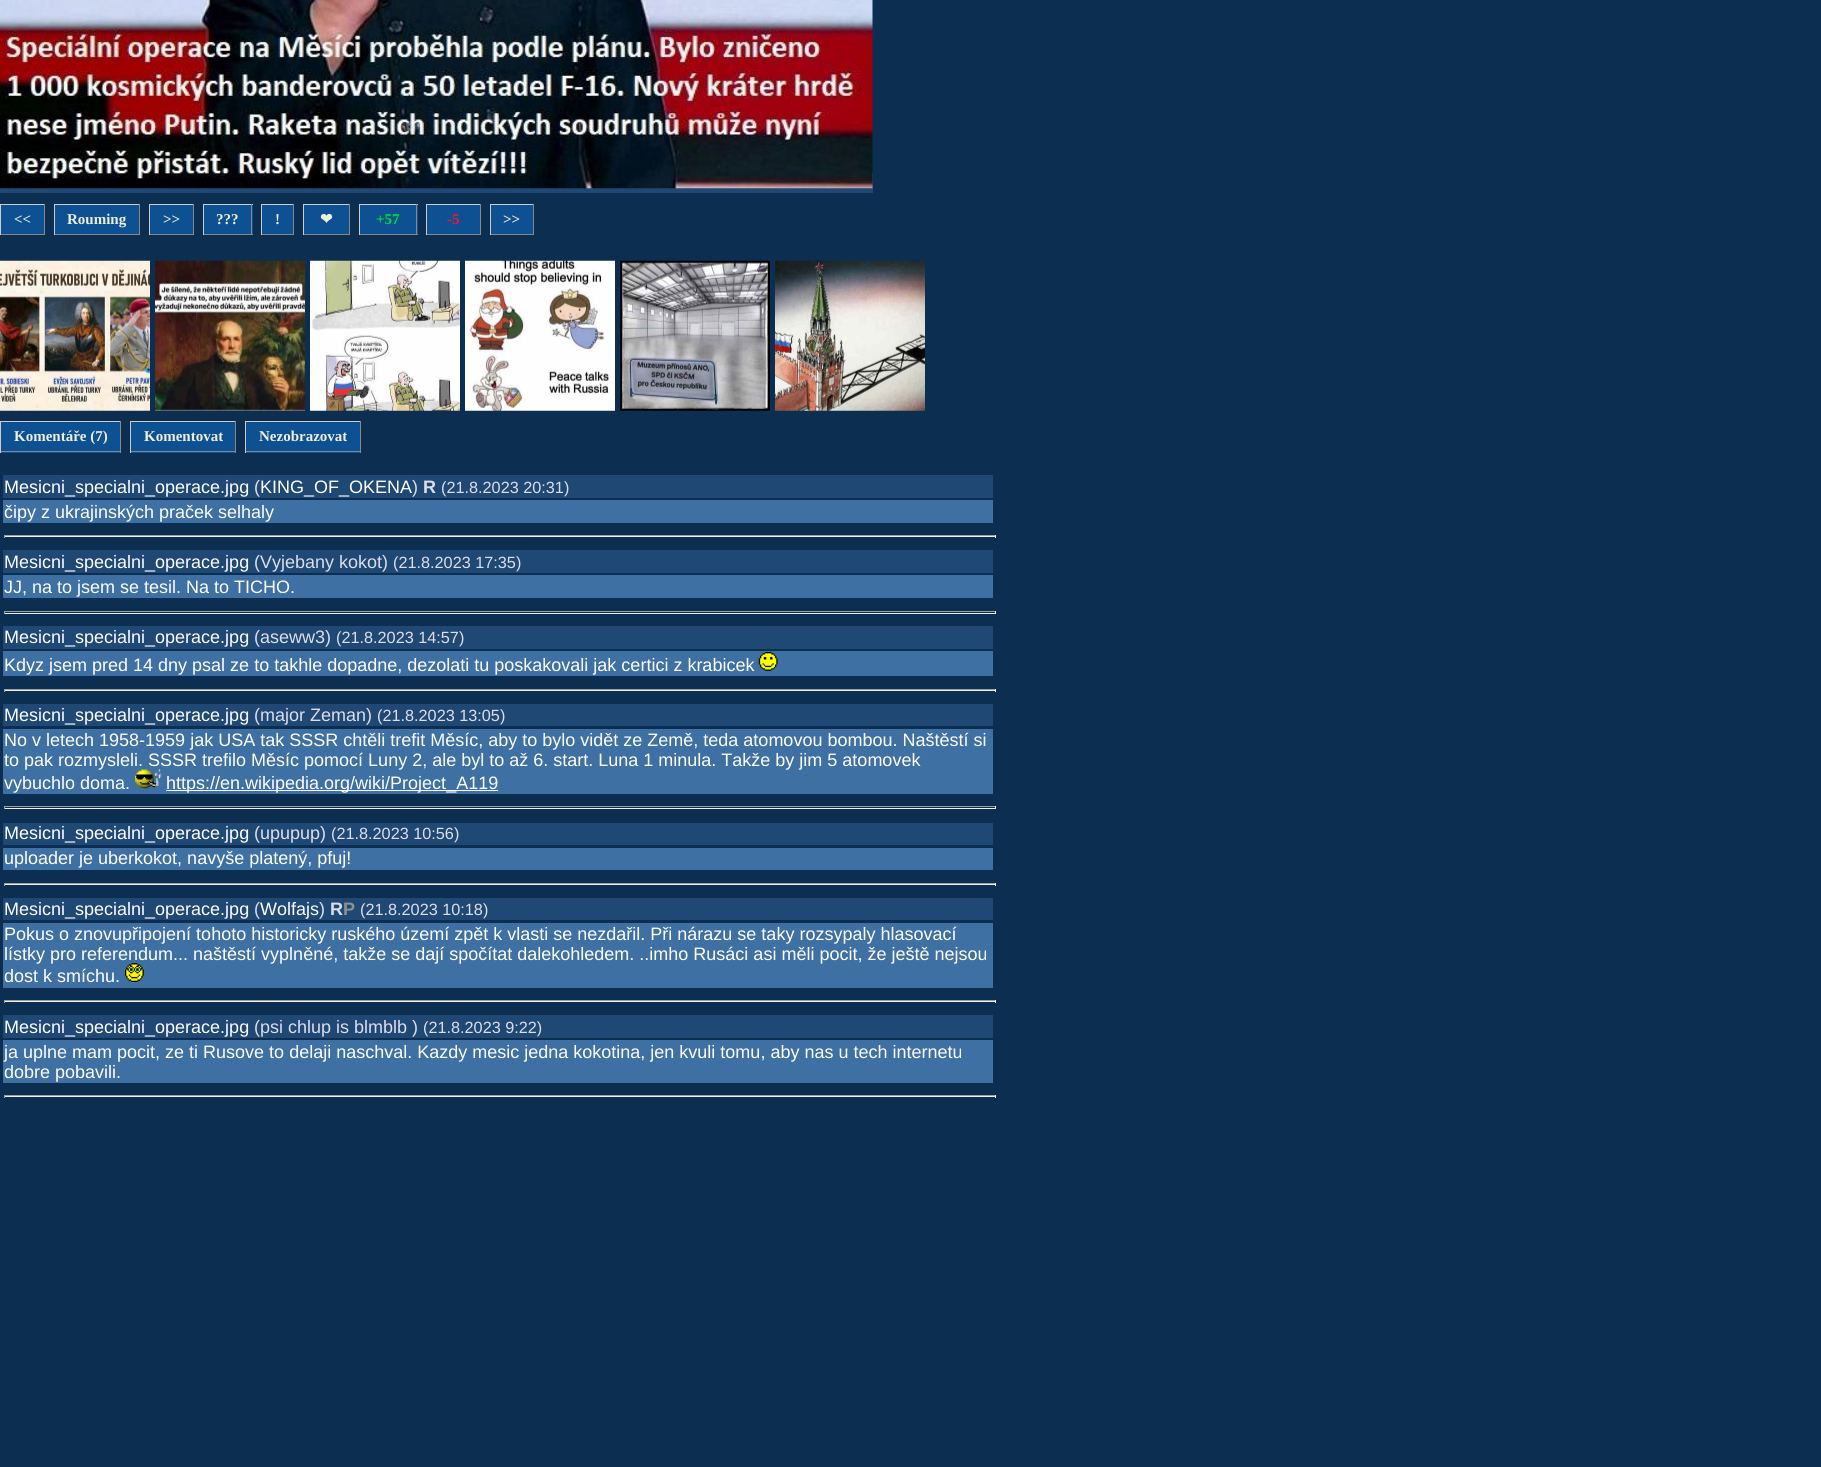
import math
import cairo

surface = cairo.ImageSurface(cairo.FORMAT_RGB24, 1821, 1467)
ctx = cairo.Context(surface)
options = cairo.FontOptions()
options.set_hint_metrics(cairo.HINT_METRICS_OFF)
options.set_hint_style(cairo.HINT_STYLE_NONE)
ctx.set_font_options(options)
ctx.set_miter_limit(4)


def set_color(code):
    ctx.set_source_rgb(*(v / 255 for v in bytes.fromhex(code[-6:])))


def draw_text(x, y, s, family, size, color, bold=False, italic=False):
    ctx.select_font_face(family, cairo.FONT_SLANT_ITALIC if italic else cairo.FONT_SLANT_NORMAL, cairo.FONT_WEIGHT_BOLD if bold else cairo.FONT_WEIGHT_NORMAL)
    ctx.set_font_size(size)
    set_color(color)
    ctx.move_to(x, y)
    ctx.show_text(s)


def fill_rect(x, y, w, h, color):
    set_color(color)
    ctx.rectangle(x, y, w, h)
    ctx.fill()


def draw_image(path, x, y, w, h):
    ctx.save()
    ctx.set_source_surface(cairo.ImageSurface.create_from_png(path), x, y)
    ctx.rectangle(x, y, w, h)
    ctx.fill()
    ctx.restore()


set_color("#0c2e51")
ctx.paint()
fill_rect(0, 173, 873, 20, "#1f4974")
draw_image("assets/img1.png", 0, 0, 873, 189)
fill_rect(1, 205, 43, 29, "#0e5193")
fill_rect(0, 204, 45, 1, "#cccccc")
fill_rect(44, 204, 1, 31, "#888888")
fill_rect(0, 234, 45, 1, "#888888")
fill_rect(0, 204, 1, 31, "#cccccc")
draw_text(14, 224, "<<", "Liberation Serif", 15, "#eeeedd", bold=True)
fill_rect(55, 205, 84, 29, "#0e5193")
fill_rect(54, 204, 86, 1, "#cccccc")
fill_rect(139, 204, 1, 31, "#888888")
fill_rect(54, 234, 86, 1, "#888888")
fill_rect(54, 204, 1, 31, "#cccccc")
draw_text(67, 224, "Rouming", "Liberation Serif", 15, "#eeeedd", bold=True)
fill_rect(150, 205, 43, 29, "#0e5193")
fill_rect(149, 204, 45, 1, "#cccccc")
fill_rect(193, 204, 1, 31, "#888888")
fill_rect(149, 234, 45, 1, "#888888")
fill_rect(149, 204, 1, 31, "#cccccc")
draw_text(163, 224, ">>", "Liberation Serif", 15, "#eeeedd", bold=True)
fill_rect(204, 205, 49, 29, "#0e5193")
fill_rect(203, 204, 50, 1, "#cccccc")
fill_rect(251, 204, 1, 31, "#888888")
fill_rect(203, 234, 50, 1, "#888888")
fill_rect(203, 204, 1, 31, "#cccccc")
draw_text(216, 224, "???", "Liberation Serif", 15, "#eeeedd", bold=True)
fill_rect(262, 205, 31, 29, "#0e5193")
fill_rect(261, 204, 33, 1, "#cccccc")
fill_rect(293, 204, 1, 31, "#888888")
fill_rect(261, 234, 33, 1, "#888888")
fill_rect(261, 204, 1, 31, "#cccccc")
draw_text(275, 224, "!", "Liberation Serif", 15, "#eeeedd", bold=True)
fill_rect(304, 205, 45, 29, "#0e5193")
fill_rect(303, 204, 47, 1, "#cccccc")
fill_rect(349, 204, 1, 31, "#888888")
fill_rect(303, 234, 47, 1, "#888888")
fill_rect(303, 204, 1, 31, "#cccccc")
draw_text(320, 224, "❤", "DejaVu Sans", 15, "#eeeedd", bold=True)
fill_rect(360, 205, 58, 29, "#0e5193")
fill_rect(359, 204, 59, 1, "#cccccc")
fill_rect(416, 204, 1, 31, "#888888")
fill_rect(359, 234, 59, 1, "#888888")
fill_rect(359, 204, 1, 31, "#cccccc")
draw_text(376, 224, "+57", "Liberation Serif", 15, "#00dd33", bold=True)
fill_rect(427, 205, 53, 29, "#0e5193")
fill_rect(426, 204, 55, 1, "#cccccc")
fill_rect(480, 204, 1, 31, "#888888")
fill_rect(426, 234, 55, 1, "#888888")
fill_rect(426, 204, 1, 31, "#cccccc")
draw_text(447, 224, "-5", "Liberation Serif", 15, "#ff1133", bold=True)
fill_rect(491, 205, 42, 29, "#0e5193")
fill_rect(490, 204, 44, 1, "#cccccc")
fill_rect(533, 204, 1, 31, "#888888")
fill_rect(490, 234, 44, 1, "#888888")
fill_rect(490, 204, 1, 31, "#cccccc")
draw_text(503, 224, ">>", "Liberation Serif", 15, "#eeeedd", bold=True)
draw_image("assets/img2.png", 0, 260, 150, 151)
draw_image("assets/img3.png", 155, 260, 150, 151)
draw_image("assets/img4.png", 310, 260, 150, 151)
draw_image("assets/img5.png", 465, 260, 150, 151)
draw_image("assets/img6.png", 620, 260, 150, 151)
draw_image("assets/img7.png", 775, 260, 150, 151)
fill_rect(1, 422, 119, 31, "#0e5193")
fill_rect(0, 421, 121, 1, "#cccccc")
fill_rect(120, 421, 1, 32, "#888888")
fill_rect(0, 451, 121, 1, "#888888")
fill_rect(0, 421, 1, 32, "#cccccc")
draw_text(14, 441, "Komentáře (7)", "Liberation Serif", 15, "#eeeedd", bold=True)
fill_rect(131, 422, 104, 31, "#0e5193")
fill_rect(130, 421, 106, 1, "#cccccc")
fill_rect(235, 421, 1, 32, "#888888")
fill_rect(130, 451, 106, 1, "#888888")
fill_rect(130, 421, 1, 32, "#cccccc")
draw_text(144, 441, "Komentovat", "Liberation Serif", 15, "#eeeedd", bold=True)
fill_rect(246, 422, 114, 31, "#0e5193")
fill_rect(245, 421, 116, 1, "#cccccc")
fill_rect(360, 421, 1, 32, "#888888")
fill_rect(245, 451, 116, 1, "#888888")
fill_rect(245, 421, 1, 32, "#cccccc")
draw_text(259, 441, "Nezobrazovat", "Liberation Serif", 15, "#eeeedd", bold=True)
fill_rect(3, 475, 990, 23, "#1f4974")
draw_text(4, 493, "Mesicni_specialni_operace.jpg", "Liberation Sans", 18, "#fefeff")
draw_text(254, 493, "(", "Liberation Sans", 18, "#ddddee")
draw_text(260, 493, "KING_OF_OKENA", "Liberation Sans", 18, "#fefeff")
draw_text(412, 493, ")", "Liberation Sans", 18, "#ddddee")
draw_text(423, 493, "R", "Liberation Sans", 18, "#ddddee", bold=True)
draw_text(441, 493, "(21.8.2023 20:31)", "Liberation Sans", 16.25, "#ddddee")
fill_rect(3, 500, 990, 23, "#3f70a3")
draw_text(4, 518, "čipy z ukrajinských praček selhaly", "Liberation Sans", 18, "#fefeff")
fill_rect(4, 535, 992, 1, "#9f9f9f")
fill_rect(995, 535, 1, 3, "#eeeeee")
fill_rect(4, 536, 992, 1, "#eeeeee")
fill_rect(4, 535, 1, 3, "#9f9f9f")
fill_rect(3, 550, 990, 23, "#1f4974")
draw_text(4, 568, "Mesicni_specialni_operace.jpg", "Liberation Sans", 18, "#fefeff")
draw_text(254, 568, "(Vyjebany kokot)", "Liberation Sans", 18, "#ddddee")
draw_text(393, 568, "(21.8.2023 17:35)", "Liberation Sans", 16.25, "#ddddee")
fill_rect(3, 575, 990, 23, "#3f70a3")
draw_text(4, 593, "JJ, na to jsem se tesil. Na to TICHO.", "Liberation Sans", 18, "#fefeff")
fill_rect(4, 611, 992, 1, "#9f9f9f")
fill_rect(995, 611, 1, 3, "#eeeeee")
fill_rect(4, 613, 992, 1, "#eeeeee")
fill_rect(4, 611, 1, 3, "#9f9f9f")
fill_rect(3, 626, 990, 23, "#1f4974")
draw_text(4, 643, "Mesicni_specialni_operace.jpg", "Liberation Sans", 18, "#fefeff")
draw_text(254, 643, "(aseww3)", "Liberation Sans", 18, "#ddddee")
draw_text(336, 643, "(21.8.2023 14:57)", "Liberation Sans", 16.25, "#ddddee")
fill_rect(3, 651, 990, 25, "#3f70a3")
draw_text(4, 671, "Kdyz jsem pred 14 dny psal ze to takhle dopadne, dezolati tu poskakovali jak certici z krabicek", "Liberation Sans", 18, "#fefeff")
draw_image("assets/img8.png", 758, 652, 20, 19)
fill_rect(4, 689, 992, 1, "#9f9f9f")
fill_rect(995, 689, 1, 3, "#eeeeee")
fill_rect(4, 690, 992, 1, "#eeeeee")
fill_rect(4, 689, 1, 3, "#9f9f9f")
fill_rect(3, 704, 990, 22, "#1f4974")
draw_text(4, 721, "Mesicni_specialni_operace.jpg", "Liberation Sans", 18, "#fefeff")
draw_text(254, 721, "(major Zeman)", "Liberation Sans", 18, "#ddddee")
draw_text(377, 721, "(21.8.2023 13:05)", "Liberation Sans", 16.25, "#ddddee")
fill_rect(3, 729, 990, 65, "#3f70a3")
draw_text(4, 746, "No v letech 1958-1959 jak USA tak SSSR chtěli trefit Měsíc, aby to bylo vidět ze Země, teda atomovou bombou. Naštěstí si", "Liberation Sans", 18, "#fefeff")
draw_text(4, 766, "to pak rozmysleli. SSSR trefilo Měsíc pomocí Luny 2, ale byl to až 6. start. Luna 1 minula. Takže by jim 5 atomovek", "Liberation Sans", 18, "#fefeff")
draw_text(4, 789, "vybuchlo doma.", "Liberation Sans", 18, "#fefeff")
draw_image("assets/img9.png", 135, 769, 27, 20)
fill_rect(166, 790, 332, 1, "#fefeff")
draw_text(166, 789, "https://en.wikipedia.org/wiki/Project_A119", "Liberation Sans", 18, "#fefeff")
fill_rect(4, 806, 992, 1, "#9f9f9f")
fill_rect(995, 806, 1, 3, "#eeeeee")
fill_rect(4, 808, 992, 1, "#eeeeee")
fill_rect(4, 806, 1, 3, "#9f9f9f")
fill_rect(3, 823, 990, 22, "#1f4974")
draw_text(4, 839, "Mesicni_specialni_operace.jpg", "Liberation Sans", 18, "#fefeff")
draw_text(254, 839, "(upupup)", "Liberation Sans", 18, "#ddddee")
draw_text(331, 839, "(21.8.2023 10:56)", "Liberation Sans", 16.25, "#ddddee")
fill_rect(3, 848, 990, 22, "#3f70a3")
draw_text(4, 864, "uploader je uberkokot, navyše platený, pfuj!", "Liberation Sans", 18, "#fefeff")
fill_rect(4, 883, 992, 1, "#9f9f9f")
fill_rect(995, 883, 1, 3, "#eeeeee")
fill_rect(4, 884, 992, 1, "#eeeeee")
fill_rect(4, 883, 1, 3, "#9f9f9f")
fill_rect(3, 898, 990, 22, "#1f4974")
draw_text(4, 915, "Mesicni_specialni_operace.jpg", "Liberation Sans", 18, "#fefeff")
draw_text(254, 915, "(", "Liberation Sans", 18, "#ddddee")
draw_text(260, 915, "Wolfajs", "Liberation Sans", 18, "#fefeff")
draw_text(319, 915, ")", "Liberation Sans", 18, "#ddddee")
draw_text(330, 915, "R", "Liberation Sans", 18, "#ddddee", bold=True)
draw_text(343, 915, "P", "Liberation Sans", 18, "#909090", bold=True)
draw_text(360, 915, "(21.8.2023 10:18)", "Liberation Sans", 16.25, "#ddddee")
fill_rect(3, 923, 990, 65, "#3f70a3")
draw_text(4, 940, "Pokus o znovupřipojení tohoto historicky ruského území zpět k vlasti se nezdařil. Při nárazu se taky rozsypaly hlasovací", "Liberation Sans", 18, "#fefeff")
draw_text(4, 960, "lístky pro referendum... naštěstí vyplněné, takže se dají spočítat dalekohledem. ..imho Rusáci asi měli pocit, že ještě nejsou", "Liberation Sans", 18, "#fefeff")
draw_text(4, 982, "dost k smíchu.", "Liberation Sans", 18, "#fefeff")
draw_image("assets/img10.png", 125, 963, 19, 19)
fill_rect(4, 1000, 992, 1, "#9f9f9f")
fill_rect(995, 1000, 1, 3, "#eeeeee")
fill_rect(4, 1001, 992, 1, "#eeeeee")
fill_rect(4, 1000, 1, 3, "#9f9f9f")
fill_rect(3, 1015, 990, 23, "#1f4974")
draw_text(4, 1033, "Mesicni_specialni_operace.jpg", "Liberation Sans", 18, "#fefeff")
draw_text(254, 1033, "(psi chlup is blmblb )", "Liberation Sans", 18, "#ddddee")
draw_text(423, 1033, "(21.8.2023 9:22)", "Liberation Sans", 16.25, "#ddddee")
fill_rect(3, 1040, 990, 43, "#3f70a3")
draw_text(4, 1058, "ja uplne mam pocit, ze ti Rusove to delaji naschval. Kazdy mesic jedna kokotina, jen kvuli tomu, aby nas u tech internetu", "Liberation Sans", 18, "#fefeff")
draw_text(4, 1078, "dobre pobavili.", "Liberation Sans", 18, "#fefeff")
fill_rect(4, 1095, 992, 1, "#9f9f9f")
fill_rect(995, 1095, 1, 3, "#eeeeee")
fill_rect(4, 1096, 992, 1, "#eeeeee")
fill_rect(4, 1095, 1, 3, "#9f9f9f")
surface.write_to_png("output.png")
